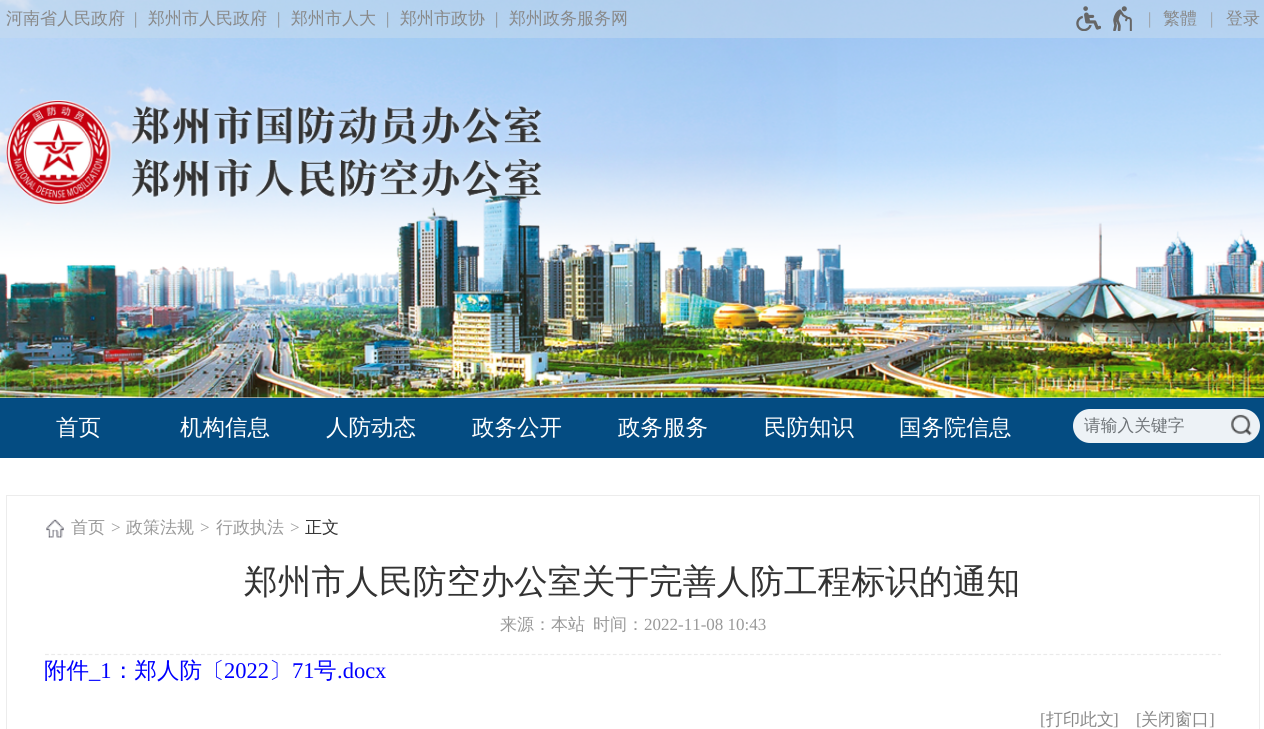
import math
import cairo

surface = cairo.ImageSurface(cairo.FORMAT_RGB24, 1264, 729)
ctx = cairo.Context(surface)
options = cairo.FontOptions()
options.set_hint_metrics(cairo.HINT_METRICS_OFF)
options.set_hint_style(cairo.HINT_STYLE_NONE)
ctx.set_font_options(options)
ctx.set_miter_limit(4)


def set_color(code):
    ctx.set_source_rgb(*(v / 255 for v in bytes.fromhex(code[-6:])))


def draw_text(x, y, s, family, size, color, bold=False, italic=False):
    ctx.select_font_face(family, cairo.FONT_SLANT_ITALIC if italic else cairo.FONT_SLANT_NORMAL, cairo.FONT_WEIGHT_BOLD if bold else cairo.FONT_WEIGHT_NORMAL)
    ctx.set_font_size(size)
    set_color(color)
    ctx.move_to(x, y)
    ctx.show_text(s)


def fill_rect(x, y, w, h, color):
    set_color(color)
    ctx.rectangle(x, y, w, h)
    ctx.fill()


def rounded_rect(x, y, w, h, r):
    ctx.new_sub_path()
    for i, (u, v) in enumerate([(x + w - r, y + h - r), (x + r, y + h - r), (x + r, y + r), (x + w - r, y + r)]):
        ctx.arc(u, v, r, i * math.pi / 2, (i + 1) * math.pi / 2)
    ctx.close_path()


def draw_image(path, x, y, w, h):
    ctx.save()
    ctx.set_source_surface(cairo.ImageSurface.create_from_png(path), x, y)
    ctx.rectangle(x, y, w, h)
    ctx.fill()
    ctx.restore()


set_color("#ffffff")
ctx.paint()
draw_image("assets/img1.png", 0, 0, 1264, 398)
ctx.set_source_rgba(0.788, 0.863, 0.937, 0.5)
ctx.rectangle(0, 0, 1264, 38)
ctx.fill()
draw_text(6, 24, "河南省人民政府", "WenQuanYi Zen Hei Medium", 17, "#888888")
draw_text(134, 24, "|", "Liberation Serif", 17, "#888888")
draw_text(148, 24, "郑州市人民政府", "WenQuanYi Zen Hei Medium", 17, "#888888")
draw_text(277, 24, "|", "Liberation Serif", 17, "#888888")
draw_text(291, 24, "郑州市人大", "WenQuanYi Zen Hei Medium", 17, "#888888")
draw_text(386, 24, "|", "Liberation Serif", 17, "#888888")
draw_text(400, 24, "郑州市政协", "WenQuanYi Zen Hei Medium", 17, "#888888")
draw_text(495, 24, "|", "Liberation Serif", 17, "#888888")
draw_text(509, 24, "郑州政务服务网", "WenQuanYi Zen Hei Medium", 17, "#888888")
draw_image("assets/img2.png", 1076, 6, 25, 25)
draw_image("assets/img3.png", 1113, 6, 19, 25)
draw_text(1148, 24, "|", "Liberation Serif", 17, "#999999")
draw_text(1163, 24, "繁體", "WenQuanYi Zen Hei Medium", 17, "#888888")
draw_text(1210, 24, "|", "Liberation Serif", 17, "#999999")
draw_text(1226, 24, "登录", "WenQuanYi Zen Hei Medium", 17, "#888888")
draw_image("assets/img4.png", 6, 100, 537, 105)
fill_rect(0, 398, 1264, 60, "#044c82")
draw_text(56, 435, "首页", "WenQuanYi Zen Hei Medium", 22.5, "#ffffff")
draw_text(180, 435, "机构信息", "WenQuanYi Zen Hei Medium", 22.5, "#ffffff")
draw_text(326, 435, "人防动态", "WenQuanYi Zen Hei Medium", 22.5, "#ffffff")
draw_text(472, 435, "政务公开", "WenQuanYi Zen Hei Medium", 22.5, "#ffffff")
draw_text(618, 435, "政务服务", "WenQuanYi Zen Hei Medium", 22.5, "#ffffff")
draw_text(764, 435, "民防知识", "WenQuanYi Zen Hei Medium", 22.5, "#ffffff")
draw_text(899, 435, "国务院信息", "WenQuanYi Zen Hei Medium", 22.5, "#ffffff")
set_color("#edf2f6")
rounded_rect(1073, 409, 187, 34, 17)
ctx.fill()
draw_text(1084, 431, "请输入关键字", "WenQuanYi Zen Hei Medium", 16.75, "#6d7276")
draw_image("assets/img5.png", 1231, 414, 21, 22)
ctx.rectangle(6.5, 495.5, 1253, 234)
set_color("#ececec")
ctx.set_line_width(1)
ctx.stroke()
draw_image("assets/img6.png", 46, 519, 18, 19)
draw_text(71, 533, "首页", "WenQuanYi Zen Hei Medium", 17, "#999999")
draw_text(111, 533, ">", "Liberation Serif", 17, "#999999")
draw_text(126, 533, "政策法规", "WenQuanYi Zen Hei Medium", 17, "#999999")
draw_text(200, 533, ">", "Liberation Serif", 17, "#999999")
draw_text(216, 533, "行政执法", "WenQuanYi Zen Hei Medium", 17, "#999999")
draw_text(290, 533, ">", "Liberation Serif", 17, "#999999")
draw_text(305, 533, "正文", "WenQuanYi Zen Hei Medium", 17, "#333333")
draw_text(244, 593, "郑州市人民防空办公室关于完善人防工程标识的通知", "WenQuanYi Zen Hei Medium", 33.75, "#333333")
ctx.new_path()
ctx.move_to(45, 654.5)
ctx.line_to(1221, 654.5)
set_color("#eaeaea")
ctx.set_line_width(1.2)
ctx.set_dash([3.75, 2.49])
ctx.stroke()
draw_text(500, 630, "来源：本站", "WenQuanYi Zen Hei Medium", 17, "#999999")
draw_text(593, 630, "时间：", "WenQuanYi Zen Hei Medium", 17, "#999999")
draw_text(644, 630, "2022-11-08 10:43", "Liberation Serif", 17, "#999999")
draw_text(44, 678, "附件", "WenQuanYi Zen Hei Medium", 22.5, "#0000ff")
draw_text(89, 678, "_1", "Liberation Serif", 22.5, "#0000ff")
draw_text(112, 678, "：郑人防〔", "WenQuanYi Zen Hei Medium", 22.5, "#0000ff")
draw_text(224, 678, "2022", "Liberation Serif", 22.5, "#0000ff")
draw_text(269, 678, "〕", "WenQuanYi Zen Hei Medium", 22.5, "#0000ff")
draw_text(292, 678, "71", "Liberation Serif", 22.5, "#0000ff")
draw_text(314, 678, "号", "WenQuanYi Zen Hei Medium", 22.5, "#0000ff")
draw_text(337, 678, ".docx", "Liberation Serif", 22.5, "#0000ff")
draw_text(1040, 725, "[", "Liberation Serif", 17, "#888888")
draw_text(1046, 725, "打印此文", "WenQuanYi Zen Hei Medium", 17, "#888888")
draw_text(1113, 725, "]", "Liberation Serif", 17, "#888888")
draw_text(1136, 725, "[", "Liberation Serif", 17, "#888888")
draw_text(1141, 725, "关闭窗口", "WenQuanYi Zen Hei Medium", 17, "#888888")
draw_text(1209, 725, "]", "Liberation Serif", 17, "#888888")
surface.write_to_png("output.png")
